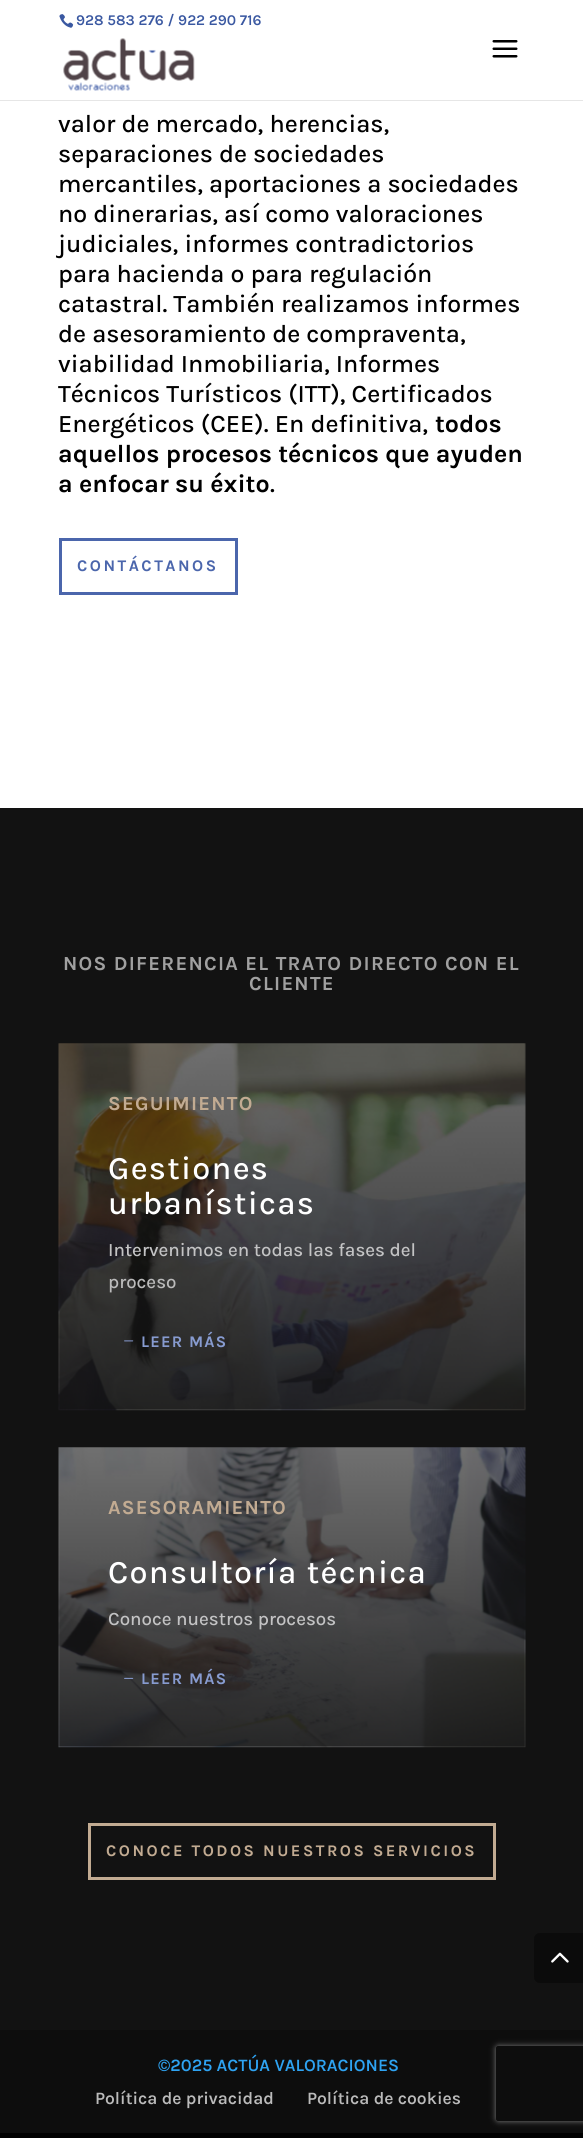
import math
import cairo

surface = cairo.ImageSurface(cairo.FORMAT_RGB24, 583, 2138)
ctx = cairo.Context(surface)
options = cairo.FontOptions()
options.set_hint_metrics(cairo.HINT_METRICS_OFF)
options.set_hint_style(cairo.HINT_STYLE_NONE)
ctx.set_font_options(options)
ctx.set_miter_limit(4)


def set_color(code):
    ctx.set_source_rgb(*(v / 255 for v in bytes.fromhex(code[-6:])))


def draw_text(x, y, s, family, size, color, bold=False, italic=False):
    ctx.select_font_face(family, cairo.FONT_SLANT_ITALIC if italic else cairo.FONT_SLANT_NORMAL, cairo.FONT_WEIGHT_BOLD if bold else cairo.FONT_WEIGHT_NORMAL)
    ctx.set_font_size(size)
    set_color(color)
    ctx.move_to(x, y)
    ctx.show_text(s)


def draw_spaced(x, y, s, letter, word):
    ctx.move_to(x, y)
    for ch in s:
        ctx.show_text(ch)
        ctx.rel_move_to(letter + word * (ch == ' '), 0)


def fill_rect(x, y, w, h, color):
    set_color(color)
    ctx.rectangle(x, y, w, h)
    ctx.fill()


def rounded_rect(x, y, w, h, r):
    ctx.new_sub_path()
    for i, (u, v) in enumerate([(x + w - r, y + h - r), (x + r, y + h - r), (x + r, y + r), (x + w - r, y + r)]):
        ctx.arc(u, v, r, i * math.pi / 2, (i + 1) * math.pi / 2)
    ctx.close_path()


def draw_shadow(x, y, w, h, r, blur, alpha):
    ctx.push_group_with_content(cairo.CONTENT_ALPHA)
    ctx.set_operator(cairo.OPERATOR_SOURCE)
    for i in range(15, -16, -2):
        e = blur * i / 6
        if min(w, h) + 2 * e > 0:
            ctx.set_source_rgba(0, 0, 0, alpha * math.erfc((i - 1) / 8.5) / 2)
            rounded_rect(x - e, y - e, w + 2 * e, h + 2 * e, max(0, min(r + e + blur * .6, min(w, h) / 2 + e)))
            ctx.fill()
    ctx.mask(ctx.pop_group())


def draw_image(path, x, y, w, h):
    ctx.save()
    ctx.set_source_surface(cairo.ImageSurface.create_from_png(path), x, y)
    ctx.rectangle(x, y, w, h)
    ctx.fill()
    ctx.restore()


set_color("#ffffff")
ctx.paint()
draw_image("assets/img1.png", 59, 14, 15, 14)
draw_text(76, 25, "928 583 276 / 922 290 716", "Karla SemiBold", 15, "#3a58a1")
ctx.set_source_rgba(0, 0, 0, 0.1)
ctx.new_path()
ctx.move_to(0, 100)
ctx.line_to(0, 101)
ctx.line_to(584, 101)
ctx.line_to(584, 1)
ctx.line_to(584, 100)
ctx.close_path()
ctx.fill()
draw_image("assets/img2.png", 63, 38, 132, 53)
draw_image("assets/img3.png", 492, 40, 26, 18)
draw_text(58, 132, "valor de mercado, herencias,", "Karla Medium", 25, "#000000")
draw_text(58, 162, "separaciones de sociedades", "Karla Medium", 25, "#000000")
draw_text(58, 192, "mercantiles, aportaciones a sociedades", "Karla Medium", 25, "#000000")
draw_text(58, 222, "no dinerarias, así como valoraciones", "Karla Medium", 25, "#000000")
draw_text(58, 252, "judiciales, informes contradictorios", "Karla Medium", 25, "#000000")
draw_text(58, 282, "para hacienda o para regulación", "Karla Medium", 25, "#000000")
draw_text(58, 312, "catastral. También realizamos informes", "Karla Medium", 25, "#000000")
draw_text(58, 342, "de asesoramiento de compraventa,", "Karla Medium", 25, "#000000")
draw_text(58, 372, "viabilidad Inmobiliaria, Informes", "Karla Medium", 25, "#000000")
draw_text(58, 402, "Técnicos Turísticos (ITT), Certificados", "Karla Medium", 25, "#000000")
draw_text(58, 432, "Energéticos (CEE). En definitiva,", "Karla Medium", 25, "#000000")
draw_text(435, 432, "todos", "Karla", 25, "#000000", bold=True)
draw_text(58, 462, "aquellos procesos técnicos que ayuden", "Karla", 25, "#000000", bold=True)
draw_text(58, 492, "a enfocar su éxito", "Karla", 25, "#000000", bold=True)
draw_text(270, 492, ".", "Karla Medium", 25, "#000000")
ctx.rectangle(60.5, 539.5, 176, 54)
set_color("#4b66ac")
ctx.set_line_width(3)
ctx.stroke()
ctx.select_font_face("Karla", cairo.FONT_SLANT_NORMAL, cairo.FONT_WEIGHT_BOLD)
ctx.set_font_size(16.25)
draw_spaced(77, 571, "CONTÁCTANOS", 2.5, 0)
fill_rect(0, 808, 583, 1222, "#121212")
ctx.set_font_size(20)
set_color("#a0a0a0")
draw_spaced(63, 970, "NOS DIFERENCIA EL TRATO DIRECTO CON EL", 1.25, 0)
draw_spaced(249, 990, "CLIENTE", 1.25, 0)
draw_image("assets/img4.png", 58, 1043, 468, 368)
set_color("#c2ab92")
draw_spaced(108, 1110, "SEGUIMIENTO", 1.25, 0)
ctx.select_font_face("Karla Medium")
ctx.set_font_size(32.5)
set_color("#ffffff")
draw_spaced(108, 1179, "Gestiones", 1.25, 0)
draw_spaced(108, 1214, "urbanísticas", 1.25, 0)
draw_text(108, 1256, "Intervenimos en todas las fases del", "Karla Medium", 18.75, "#c3c3c4")
draw_text(108, 1288, "proceso", "Karla Medium", 18.75, "#bbbbbb")
draw_image("assets/img5.png", 124, 1340, 10, 2)
ctx.select_font_face("Karla", cairo.FONT_SLANT_NORMAL, cairo.FONT_WEIGHT_BOLD)
ctx.set_font_size(16.25)
set_color("#879bd0")
draw_spaced(141, 1347, "LEER MÁS", 1.25, 0)
draw_image("assets/img6.png", 58, 1447, 468, 301)
ctx.set_font_size(20)
set_color("#c2ab92")
draw_spaced(108, 1514, "ASESORAMIENTO", 1.25, 0)
ctx.select_font_face("Karla Medium")
ctx.set_font_size(32.5)
set_color("#ffffff")
draw_spaced(108, 1583, "Consultoría técnica", 1.25, 0)
draw_text(108, 1625, "Conoce nuestros procesos", "Karla Medium", 18.75, "#c3c3c4")
draw_image("assets/img7.png", 124, 1677, 10, 2)
ctx.select_font_face("Karla", cairo.FONT_SLANT_NORMAL, cairo.FONT_WEIGHT_BOLD)
ctx.set_font_size(16.25)
set_color("#879bd0")
draw_spaced(141, 1684, "LEER MÁS", 1.25, 0)
ctx.rectangle(89.5, 1824.5, 405, 54)
set_color("#c2ab92")
ctx.stroke()
draw_spaced(106, 1856, "CONOCE TODOS NUESTROS SERVICIOS", 2.5, 0)
set_color("#0b0b0b")
ctx.new_path()
ctx.move_to(540, 1933)
ctx.line_to(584, 1933)
ctx.line_to(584, 1983)
ctx.line_to(540, 1983)
ctx.curve_to(536.5, 1983, 534, 1980.5, 534, 1977)
ctx.line_to(534, 1939)
ctx.curve_to(534, 1935.5, 536.5, 1933, 540, 1933)
ctx.close_path()
ctx.fill()
draw_image("assets/img8.png", 551, 1952, 18, 11)
fill_rect(0, 2133, 583, 5, "#000000")
fill_rect(0, 2030, 583, 103, "#0d0d0d")
draw_text(158, 2071, "©2025 ACTÚA VALORACIONES", "Karla SemiBold", 17.5, "#2ea3f2")
draw_text(95, 2104, "Política de privacidad", "Karla SemiBold", 17.5, "#bbbbbb")
draw_text(307, 2104, "Política de cookies", "Karla SemiBold", 17.5, "#bbbbbb")
ctx.save()
ctx.set_fill_rule(cairo.FILL_RULE_EVEN_ODD)
ctx.new_path()
ctx.move_to(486, 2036)
ctx.line_to(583, 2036)
ctx.line_to(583, 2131)
ctx.line_to(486, 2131)
ctx.close_path()
ctx.move_to(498.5, 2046)
ctx.line_to(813.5, 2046)
ctx.curve_to(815, 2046, 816, 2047, 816, 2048.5)
ctx.line_to(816, 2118.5)
ctx.curve_to(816, 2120, 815, 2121, 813.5, 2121)
ctx.line_to(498.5, 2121)
ctx.curve_to(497, 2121, 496, 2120, 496, 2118.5)
ctx.line_to(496, 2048.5)
ctx.curve_to(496, 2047, 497, 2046, 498.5, 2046)
ctx.close_path()
ctx.clip()
set_color("#808080")
draw_shadow(496, 2046, 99, 75, 2.5, 3, 1)
ctx.restore()
surface.write_to_png("output.png")
